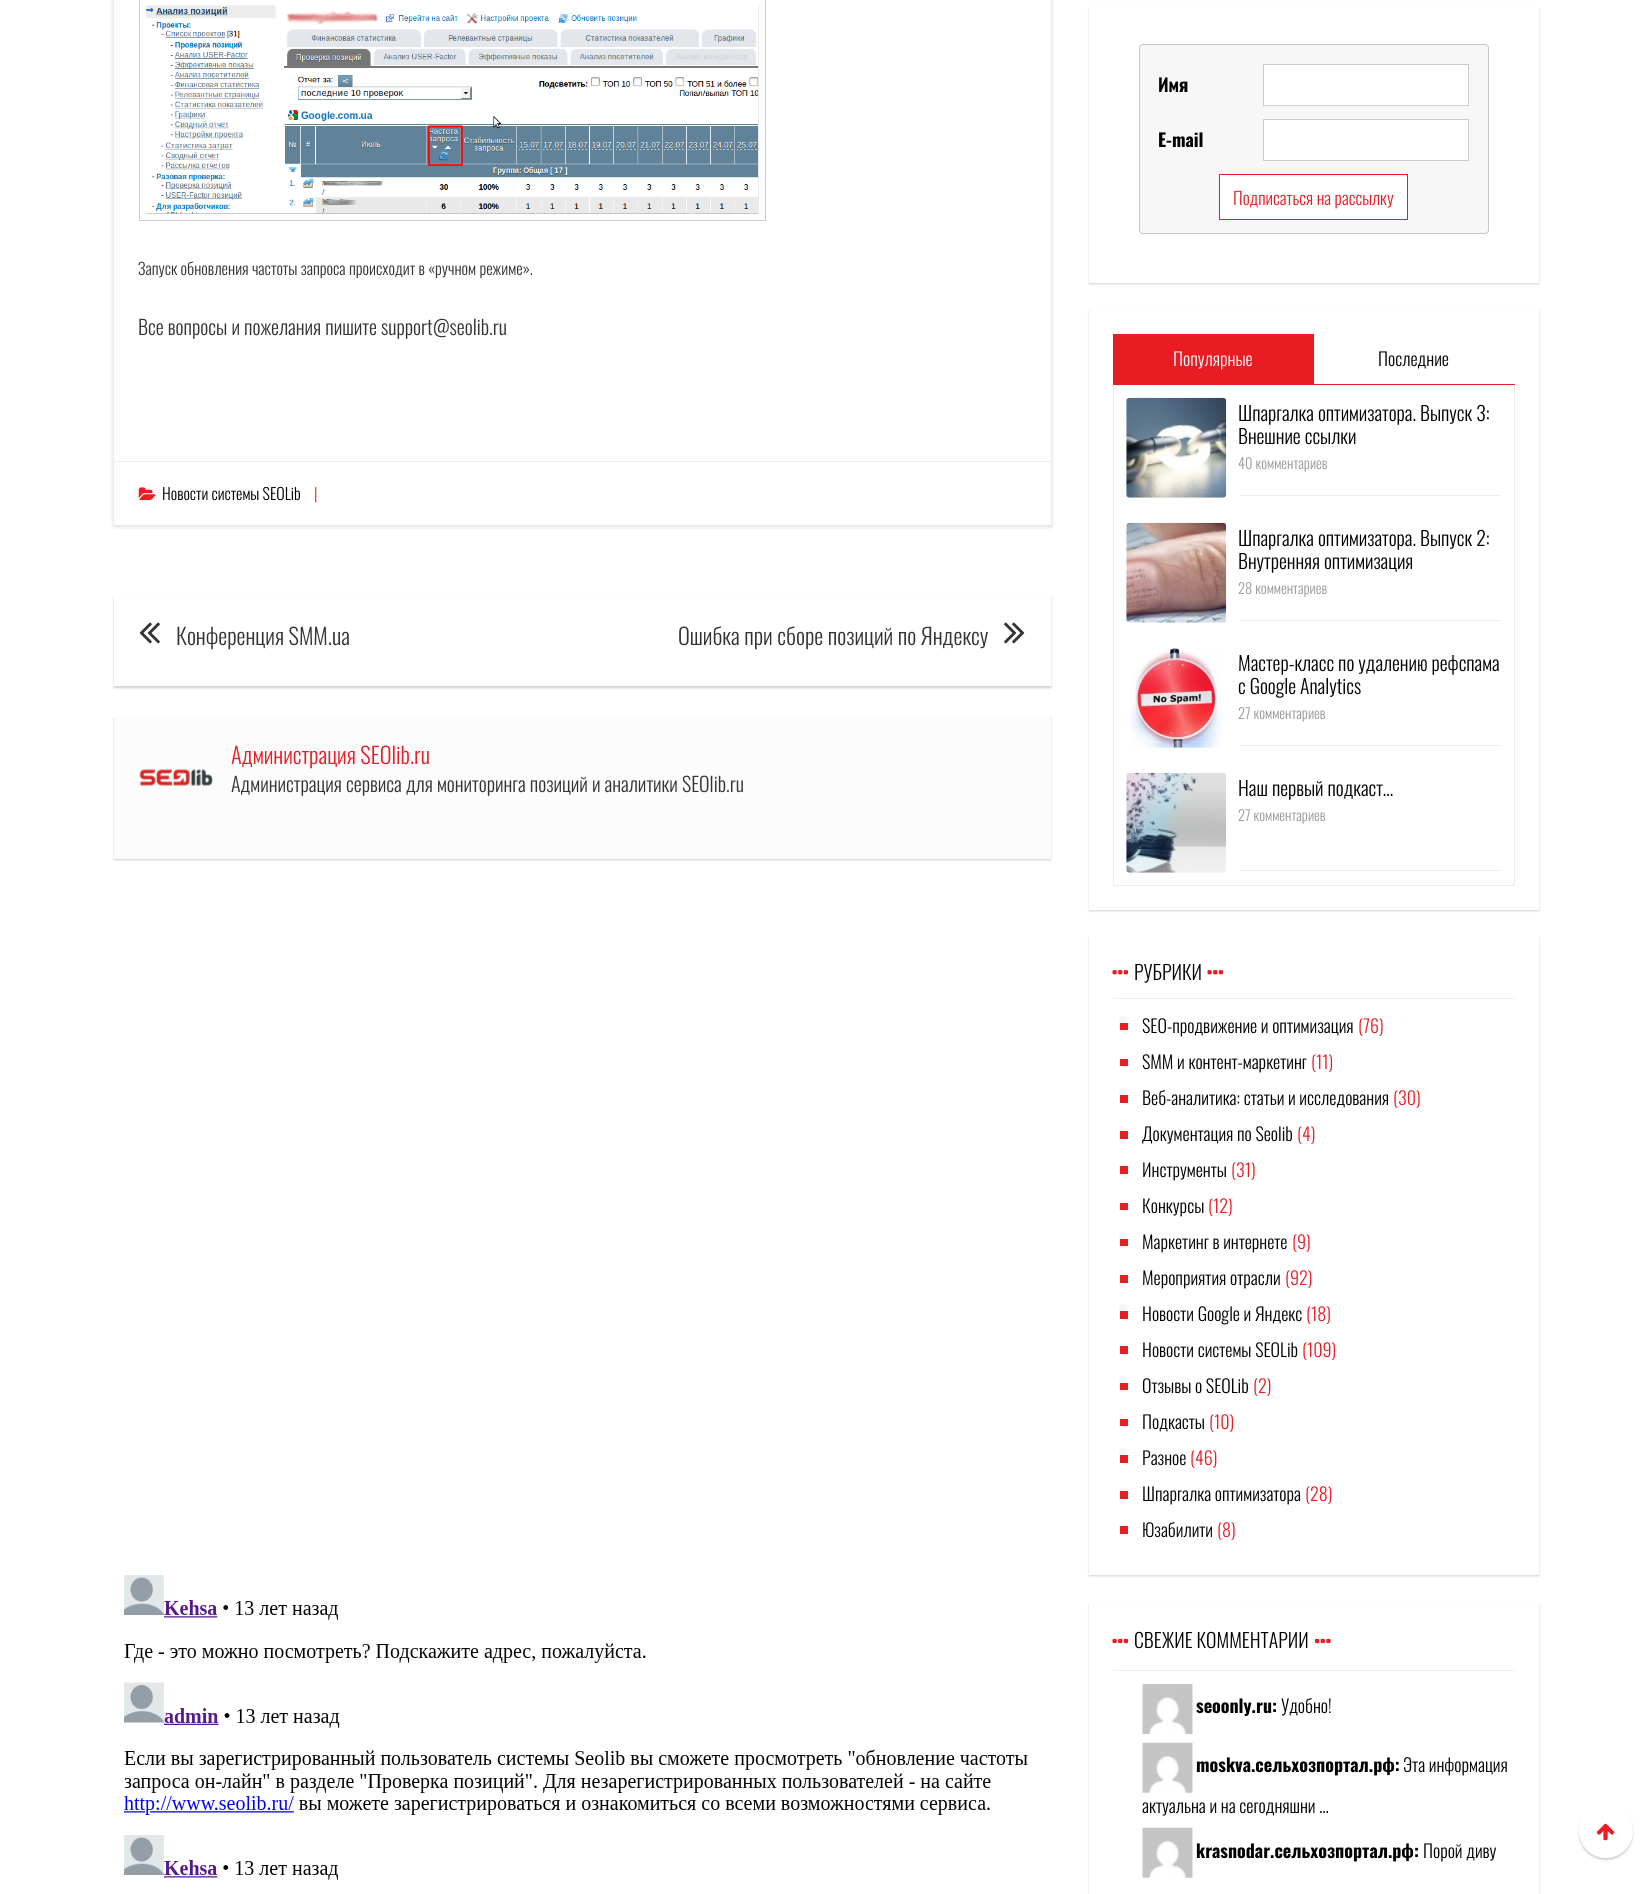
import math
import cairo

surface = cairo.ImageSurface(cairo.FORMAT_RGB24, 1651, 1894)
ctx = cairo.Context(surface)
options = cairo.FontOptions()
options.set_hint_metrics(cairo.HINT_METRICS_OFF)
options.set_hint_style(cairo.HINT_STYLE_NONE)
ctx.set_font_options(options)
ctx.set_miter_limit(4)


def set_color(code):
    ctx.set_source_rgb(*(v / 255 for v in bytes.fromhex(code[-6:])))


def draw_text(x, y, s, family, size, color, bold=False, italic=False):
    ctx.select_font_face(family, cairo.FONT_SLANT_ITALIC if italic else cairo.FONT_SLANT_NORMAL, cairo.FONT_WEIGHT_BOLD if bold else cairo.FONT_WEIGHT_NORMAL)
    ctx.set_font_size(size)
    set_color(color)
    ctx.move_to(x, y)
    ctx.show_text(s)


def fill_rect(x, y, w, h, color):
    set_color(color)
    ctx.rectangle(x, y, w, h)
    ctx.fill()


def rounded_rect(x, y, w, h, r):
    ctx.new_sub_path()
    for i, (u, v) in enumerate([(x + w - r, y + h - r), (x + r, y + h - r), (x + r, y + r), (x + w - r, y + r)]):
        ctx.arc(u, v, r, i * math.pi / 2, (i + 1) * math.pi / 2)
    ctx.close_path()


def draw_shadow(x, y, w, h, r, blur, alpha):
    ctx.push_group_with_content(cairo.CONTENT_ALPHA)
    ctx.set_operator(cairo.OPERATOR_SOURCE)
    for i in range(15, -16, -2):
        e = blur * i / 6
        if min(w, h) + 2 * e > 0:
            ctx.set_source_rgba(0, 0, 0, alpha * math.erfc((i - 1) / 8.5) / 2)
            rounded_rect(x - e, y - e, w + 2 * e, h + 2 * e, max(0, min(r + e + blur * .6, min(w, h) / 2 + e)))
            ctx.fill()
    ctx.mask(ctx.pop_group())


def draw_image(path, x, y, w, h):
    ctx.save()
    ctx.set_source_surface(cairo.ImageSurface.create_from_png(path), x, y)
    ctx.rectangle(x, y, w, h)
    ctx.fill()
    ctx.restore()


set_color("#ffffff")
ctx.paint()
ctx.save()
ctx.set_fill_rule(cairo.FILL_RULE_EVEN_ODD)
ctx.new_path()
ctx.move_to(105, 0)
ctx.line_to(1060, 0)
ctx.line_to(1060, 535)
ctx.line_to(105, 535)
ctx.close_path()
ctx.move_to(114, -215)
ctx.line_to(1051, -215)
ctx.line_to(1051, 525)
ctx.line_to(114, 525)
ctx.close_path()
ctx.clip()
set_color("#000000")
draw_shadow(114, -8, 937, 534, 0, 2.5, 0.18)
ctx.restore()
ctx.rectangle(139.5, -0.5, 626, 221)
set_color("#cccccc")
ctx.set_line_width(1)
ctx.stroke()
draw_image("assets/img1.png", 146, 5, 613, 209)
draw_text(138, 275, "Запуск обновления частоты запроса происходит в «ручном режиме».", "Oswald Light", 16.25, "#333333")
draw_text(138, 335, "Все вопросы и пожелания пишите support@seolib.ru", "Oswald Light", 20, "#333333")
fill_rect(114, 461, 937, 1, "#eeeeee")
draw_image("assets/img2.png", 138, 487, 18, 13)
draw_text(162, 500, "Новости системы SEOLib", "Oswald Light", 16, "#000000")
draw_text(314, 500, "|", "Oswald Light", 16, "#e91b23")
ctx.save()
ctx.set_fill_rule(cairo.FILL_RULE_EVEN_ODD)
ctx.new_path()
ctx.move_to(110, 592)
ctx.line_to(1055, 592)
ctx.line_to(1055, 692)
ctx.line_to(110, 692)
ctx.close_path()
ctx.move_to(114, 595)
ctx.line_to(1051, 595)
ctx.line_to(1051, 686)
ctx.line_to(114, 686)
ctx.close_path()
ctx.clip()
set_color("#000000")
draw_shadow(114, 596, 937, 92, 0, 1, 0.18)
ctx.restore()
draw_image("assets/img3.png", 139, 622, 21, 22)
draw_text(176, 645, "Конференция SMM.ua", "Oswald Light", 22.5, "#333333")
draw_text(678, 645, "Ошибка при сборе позиций по Яндексу", "Oswald Light", 22.5, "#333333")
draw_image("assets/img4.png", 1004, 622, 21, 22)
set_color("#000000")
draw_shadow(114, 718, 937, 142, 0, 1, 0.18)
fill_rect(114, 717, 937, 142, "#fcfcfc")
draw_image("assets/img5.png", 139, 769, 74, 17)
draw_text(231, 764, "Администрация SEOlib.ru", "Oswald Light", 22.5, "#e91b23")
draw_text(231, 792, "Администрация сервиса для мониторинга позиций и аналитики SEOlib.ru", "Oswald Light", 20, "#333333")
draw_image("assets/img6.png", 124, 1575, 904, 305)
set_color("#000000")
draw_shadow(1089, 9, 450, 275, 0, 1, 0.18)
fill_rect(1089, 8, 450, 275, "#ffffff")
set_color("#f7f7f7")
rounded_rect(1139.5, 44.5, 349, 189, 3.5)
ctx.fill_preserve()
set_color("#c6c6c6")
ctx.stroke()
draw_text(1158, 92, "Имя", "Oswald", 18, "#000000", bold=True)
set_color("#ffffff")
ctx.rectangle(1263.5, 64.5, 205, 41)
ctx.fill_preserve()
set_color("#cccccc")
ctx.stroke()
draw_text(1158, 147, "E-mail", "Oswald", 18, "#000000", bold=True)
set_color("#ffffff")
ctx.rectangle(1263.5, 119.5, 205, 41)
ctx.fill_preserve()
set_color("#cccccc")
ctx.stroke()
set_color("#ffffff")
ctx.rectangle(1219.5, 174.5, 188, 45)
ctx.fill_preserve()
set_color("#e91b23")
ctx.stroke()
draw_text(1233, 205, "Подписаться на рассылку", "Oswald Light", 17.5, "#e91b23")
set_color("#000000")
draw_shadow(1089, 311, 450, 600, 0, 1, 0.18)
fill_rect(1089, 310, 450, 600, "#ffffff")
fill_rect(1113, 384, 402, 1, "#e91b23")
fill_rect(1113, 334, 201, 50, "#e91b23")
draw_text(1173, 366, "Популярные", "Oswald Light", 18, "#ffffff")
draw_text(1378, 366, "Последние", "Oswald Light", 18, "#000000")
fill_rect(1514, 385, 1, 501, "#eeeeee")
fill_rect(1113, 885, 402, 1, "#eeeeee")
fill_rect(1113, 385, 1, 501, "#eeeeee")
draw_image("assets/img7.png", 1126, 397, 101, 101)
fill_rect(1239, 495, 262, 1, "#eeeeee")
draw_text(1238, 421, "Шпаргалка оптимизатора. Выпуск 3:", "Oswald Light", 19.75, "#000000")
draw_text(1238, 444, "Внешние ссылки", "Oswald Light", 19.75, "#000000")
draw_text(1238, 469, "40 комментариев", "Oswald Light", 14.5, "#999999")
draw_image("assets/img8.png", 1126, 522, 101, 101)
fill_rect(1239, 620, 262, 1, "#eeeeee")
draw_text(1238, 546, "Шпаргалка оптимизатора. Выпуск 2:", "Oswald Light", 19.75, "#000000")
draw_text(1238, 569, "Внутренняя оптимизация", "Oswald Light", 19.75, "#000000")
draw_text(1238, 594, "28 комментариев", "Oswald Light", 14.5, "#999999")
draw_image("assets/img9.png", 1130, 648, 93, 100)
fill_rect(1239, 745, 262, 1, "#eeeeee")
draw_text(1238, 671, "Мастер-класс по удалению рефспама", "Oswald Light", 19.75, "#000000")
draw_text(1238, 694, "с Google Analytics", "Oswald Light", 19.75, "#000000")
draw_text(1238, 719, "27 комментариев", "Oswald Light", 14.5, "#999999")
draw_image("assets/img10.png", 1126, 772, 101, 101)
fill_rect(1239, 870, 262, 1, "#eeeeee")
draw_text(1238, 796, "Наш первый подкаст…", "Oswald Light", 19.75, "#000000")
draw_text(1238, 821, "27 комментариев", "Oswald Light", 14.5, "#999999")
set_color("#000000")
draw_shadow(1089, 938, 450, 638, 0, 1, 0.18)
fill_rect(1089, 936, 450, 639, "#ffffff")
fill_rect(1113, 998, 402, 1, "#eeeeee")
draw_image("assets/img11.png", 1112, 970, 17, 5)
draw_text(1134, 980, "РУБРИКИ", "Oswald Light", 19.75, "#000000")
draw_image("assets/img11.png", 1207, 970, 17, 5)
fill_rect(1120, 1023, 8, 7, "#e91b23")
draw_text(1142, 1033, "SEO-продвижение и оптимизация", "Oswald Light", 18, "#000000")
draw_text(1358, 1033, "(76)", "Oswald Light", 18, "#e91b23")
fill_rect(1120, 1059, 8, 7, "#e91b23")
draw_text(1142, 1069, "SMM и контент-маркетинг", "Oswald Light", 18, "#000000")
draw_text(1311, 1069, "(11)", "Oswald Light", 18, "#e91b23")
fill_rect(1120, 1095, 8, 8, "#e91b23")
draw_text(1142, 1105, "Веб-аналитика: статьи и исследования", "Oswald Light", 18, "#000000")
draw_text(1393, 1105, "(30)", "Oswald Light", 18, "#e91b23")
fill_rect(1120, 1131, 8, 8, "#e91b23")
draw_text(1142, 1141, "Документация по Seolib", "Oswald Light", 18, "#000000")
draw_text(1297, 1141, "(4)", "Oswald Light", 18, "#e91b23")
fill_rect(1120, 1166, 8, 8, "#e91b23")
draw_text(1142, 1177, "Инструменты", "Oswald Light", 18, "#000000")
draw_text(1231, 1177, "(31)", "Oswald Light", 18, "#e91b23")
fill_rect(1120, 1203, 8, 7, "#e91b23")
draw_text(1142, 1213, "Конкурсы", "Oswald Light", 18, "#000000")
draw_text(1208, 1213, "(12)", "Oswald Light", 18, "#e91b23")
fill_rect(1120, 1239, 8, 7, "#e91b23")
draw_text(1142, 1249, "Маркетинг в интернете", "Oswald Light", 18, "#000000")
draw_text(1292, 1249, "(9)", "Oswald Light", 18, "#e91b23")
fill_rect(1120, 1275, 8, 8, "#e91b23")
draw_text(1142, 1285, "Мероприятия отрасли", "Oswald Light", 18, "#000000")
draw_text(1285, 1285, "(92)", "Oswald Light", 18, "#e91b23")
fill_rect(1120, 1311, 8, 8, "#e91b23")
draw_text(1142, 1321, "Новости Google и Яндекс", "Oswald Light", 18, "#000000")
draw_text(1306, 1321, "(18)", "Oswald Light", 18, "#e91b23")
fill_rect(1120, 1346, 8, 8, "#e91b23")
draw_text(1142, 1357, "Новости системы SEOLib", "Oswald Light", 18, "#000000")
draw_text(1302, 1357, "(109)", "Oswald Light", 18, "#e91b23")
fill_rect(1120, 1383, 8, 7, "#e91b23")
draw_text(1142, 1393, "Отзывы о SEOLib", "Oswald Light", 18, "#000000")
draw_text(1253, 1393, "(2)", "Oswald Light", 18, "#e91b23")
fill_rect(1120, 1419, 8, 7, "#e91b23")
draw_text(1142, 1429, "Подкасты", "Oswald Light", 18, "#000000")
draw_text(1209, 1429, "(10)", "Oswald Light", 18, "#e91b23")
fill_rect(1120, 1455, 8, 8, "#e91b23")
draw_text(1142, 1465, "Разное", "Oswald Light", 18, "#000000")
draw_text(1190, 1465, "(46)", "Oswald Light", 18, "#e91b23")
fill_rect(1120, 1491, 8, 8, "#e91b23")
draw_text(1142, 1501, "Шпаргалка оптимизатора", "Oswald Light", 18, "#000000")
draw_text(1305, 1501, "(28)", "Oswald Light", 18, "#e91b23")
fill_rect(1120, 1526, 8, 8, "#e91b23")
draw_text(1142, 1537, "Юзабилити", "Oswald Light", 18, "#000000")
draw_text(1217, 1537, "(8)", "Oswald Light", 18, "#e91b23")
set_color("#000000")
draw_shadow(1089, 1604, 450, 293, 0, 1, 0.18)
fill_rect(1089, 1603, 450, 291, "#ffffff")
fill_rect(1113, 1670, 402, 1, "#eeeeee")
draw_image("assets/img12.png", 1112, 1638, 17, 6)
draw_text(1134, 1648, "СВЕЖИЕ КОММЕНТАРИИ", "Oswald Light", 19.75, "#000000")
draw_image("assets/img13.png", 1315, 1638, 16, 6)
draw_image("assets/img14.png", 1142, 1684, 51, 50)
draw_text(1196, 1713, "seoonly.ru:", "Oswald", 18, "#000000", bold=True)
draw_text(1281, 1713, "Удобно!", "Oswald Light", 18, "#000000")
draw_image("assets/img15.png", 1142, 1742, 51, 51)
draw_text(1196, 1772, "moskva.сельхозпортал.рф:", "Oswald", 18, "#000000", bold=True)
draw_text(1403, 1772, "Эта информация", "Oswald Light", 18, "#000000")
draw_text(1142, 1813, "актуальна и на сегодняшни …", "Oswald Light", 18, "#000000")
draw_image("assets/img15.png", 1142, 1827, 51, 51)
draw_text(1196, 1858, "krasnodar.сельхозпортал.рф:", "Oswald", 18, "#000000", bold=True)
draw_text(1423, 1858, "Порой диву", "Oswald Light", 18, "#000000")
set_color("#000000")
draw_shadow(1579, 1805, 54, 55, 27, 1, 0.18)
set_color("#ffffff")
rounded_rect(1579, 1803, 54, 55, 27)
ctx.fill()
draw_image("assets/img16.png", 1596, 1823, 19, 18)
surface.write_to_png("output.png")
